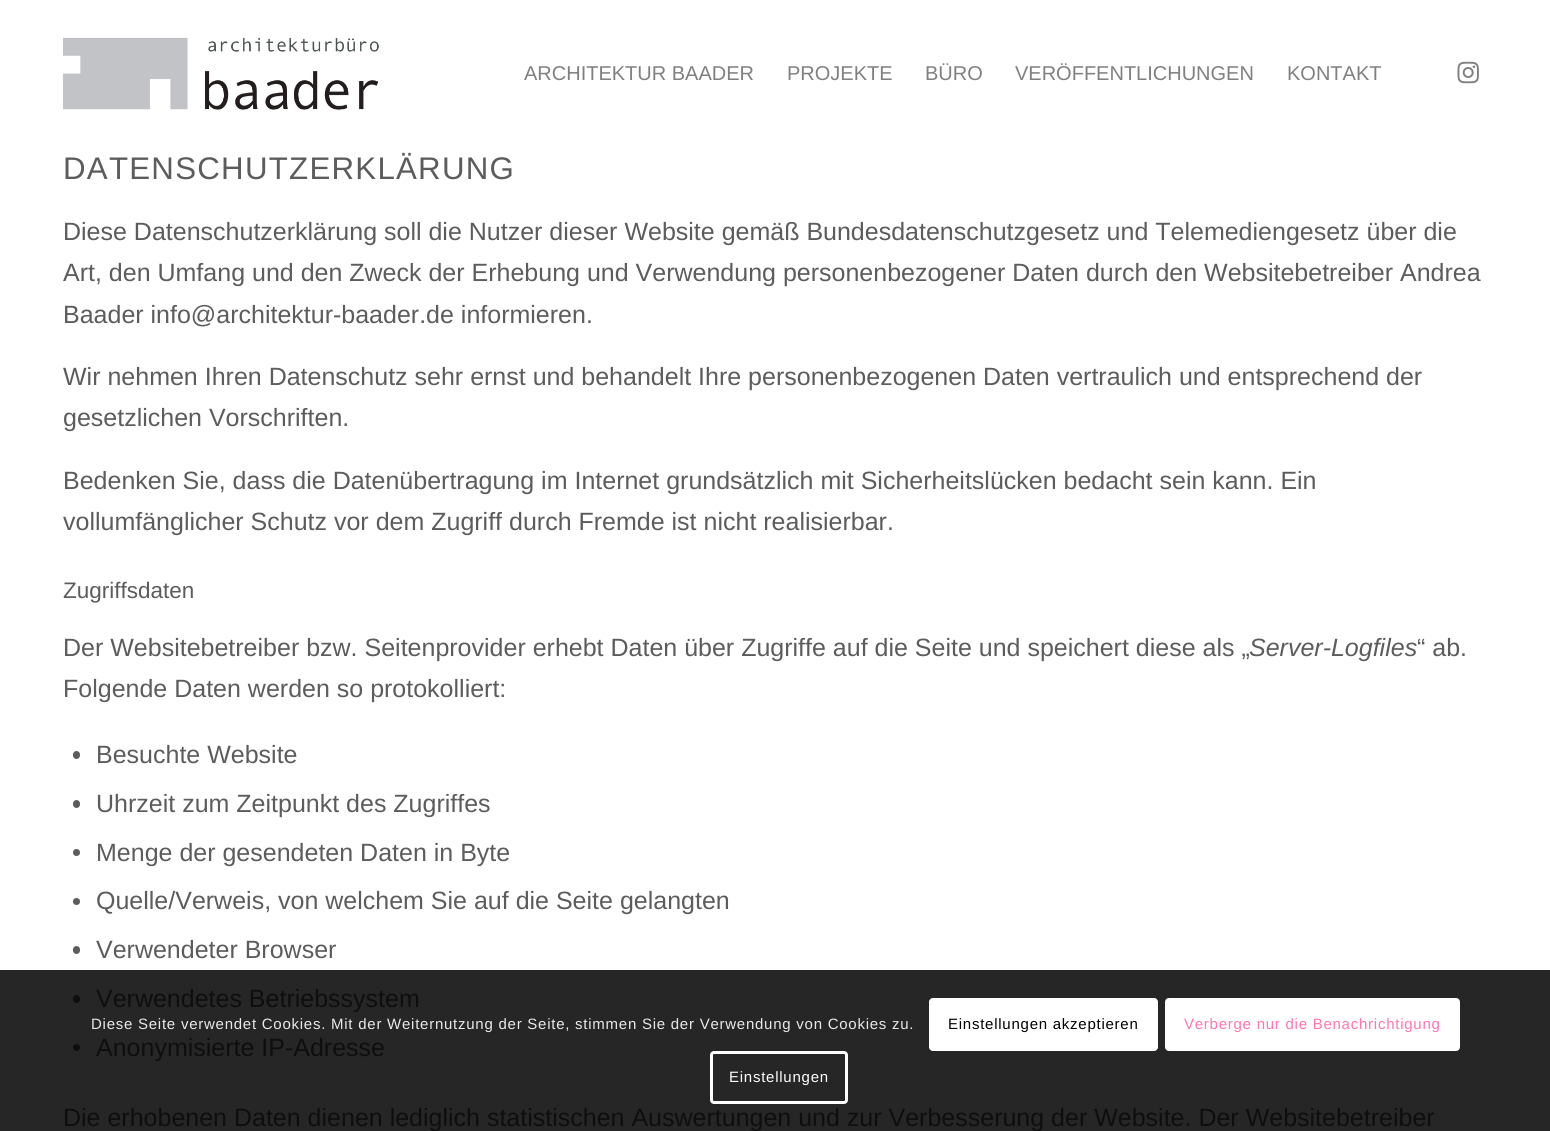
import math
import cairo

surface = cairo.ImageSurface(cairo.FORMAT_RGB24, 1550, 1131)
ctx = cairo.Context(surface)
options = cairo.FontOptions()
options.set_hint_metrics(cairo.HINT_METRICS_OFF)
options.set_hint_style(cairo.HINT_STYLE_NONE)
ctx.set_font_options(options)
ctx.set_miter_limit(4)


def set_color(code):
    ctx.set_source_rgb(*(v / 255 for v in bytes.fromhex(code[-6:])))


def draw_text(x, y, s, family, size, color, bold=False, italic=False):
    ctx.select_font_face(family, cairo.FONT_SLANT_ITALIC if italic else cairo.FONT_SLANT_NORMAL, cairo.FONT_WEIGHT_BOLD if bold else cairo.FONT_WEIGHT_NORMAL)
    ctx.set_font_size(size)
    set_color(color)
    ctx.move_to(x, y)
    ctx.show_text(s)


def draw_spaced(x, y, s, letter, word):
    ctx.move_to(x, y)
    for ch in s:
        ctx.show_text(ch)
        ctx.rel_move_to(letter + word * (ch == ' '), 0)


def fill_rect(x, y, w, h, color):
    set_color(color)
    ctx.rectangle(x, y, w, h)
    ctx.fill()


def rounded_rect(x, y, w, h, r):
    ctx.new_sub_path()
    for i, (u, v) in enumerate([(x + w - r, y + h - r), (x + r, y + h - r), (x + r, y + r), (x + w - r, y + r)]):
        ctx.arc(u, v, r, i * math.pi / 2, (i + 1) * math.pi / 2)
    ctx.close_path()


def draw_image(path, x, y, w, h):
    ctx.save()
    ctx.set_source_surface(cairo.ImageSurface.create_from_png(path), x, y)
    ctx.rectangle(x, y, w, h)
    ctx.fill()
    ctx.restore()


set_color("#ffffff")
ctx.paint()
draw_image("assets/img1.png", 63, 37, 316, 74)
draw_text(524, 80, "ARCHITEKTUR BAADER", "Liberation Sans", 20, "#808080")
draw_text(787, 80, "PROJEKTE", "Liberation Sans", 20, "#808080")
draw_text(925, 80, "BÜRO", "Liberation Sans", 20, "#808080")
draw_text(1015, 80, "VERÖFFENTLICHUNGEN", "Liberation Sans", 20, "#808080")
draw_text(1287, 80, "KONTAKT", "Liberation Sans", 20, "#808080")
draw_image("assets/img2.png", 1457, 61, 22, 23)
fill_rect(0, 970, 1550, 161, "#262626")
ctx.set_font_size(31.25)
set_color("#5c5c5c")
draw_spaced(63, 179, "DATENSCHUTZERKLÄRUNG", 1.25, 0)
draw_text(63, 240, "Diese Datenschutzerklärung soll die Nutzer dieser Website gemäß Bundesdatenschutzgesetz und Telemediengesetz über die", "Liberation Sans", 25, "#5c5c5c")
draw_text(63, 281, "Art, den Umfang und den Zweck der Erhebung und Verwendung personenbezogener Daten durch den Websitebetreiber Andrea", "Liberation Sans", 25, "#5c5c5c")
draw_text(63, 323, "Baader info@architektur-baader.de informieren.", "Liberation Sans", 25, "#5c5c5c")
draw_text(63, 385, "Wir nehmen Ihren Datenschutz sehr ernst und behandelt Ihre personenbezogenen Daten vertraulich und entsprechend der", "Liberation Sans", 25, "#5c5c5c")
draw_text(63, 426, "gesetzlichen Vorschriften.", "Liberation Sans", 25, "#5c5c5c")
draw_text(63, 489, "Bedenken Sie, dass die Datenübertragung im Internet grundsätzlich mit Sicherheitslücken bedacht sein kann. Ein", "Liberation Sans", 25, "#5c5c5c")
draw_text(63, 530, "vollumfänglicher Schutz vor dem Zugriff durch Fremde ist nicht realisierbar.", "Liberation Sans", 25, "#5c5c5c")
draw_text(63, 598, "Zugriffsdaten", "Liberation Sans", 22.5, "#5c5c5c")
draw_text(63, 656, "Der Websitebetreiber bzw. Seitenprovider erhebt Daten über Zugriffe auf die Seite und speichert diese als „", "Liberation Sans", 25, "#5c5c5c")
draw_text(1249, 656, "Server-Logfiles", "Liberation Sans", 25, "#5c5c5c", italic=True)
draw_text(1417, 656, "“ ab.", "Liberation Sans", 25, "#5c5c5c")
draw_text(63, 697, "Folgende Daten werden so protokolliert:", "Liberation Sans", 25, "#5c5c5c")
rounded_rect(73, 751, 7, 8, 3.5)
ctx.fill()
draw_text(96, 763, "Besuchte Website", "Liberation Sans", 25, "#5c5c5c")
rounded_rect(73, 800, 7, 8, 3.5)
ctx.fill()
draw_text(96, 812, "Uhrzeit zum Zeitpunkt des Zugriffes", "Liberation Sans", 25, "#5c5c5c")
ctx.new_path()
ctx.arc(76.5, 852.5, 3.5, 0, 2 * math.pi)
ctx.fill()
draw_text(96, 861, "Menge der gesendeten Daten in Byte", "Liberation Sans", 25, "#5c5c5c")
ctx.new_path()
ctx.arc(76.5, 901.5, 3.5, 0, 2 * math.pi)
ctx.fill()
draw_text(96, 909, "Quelle/Verweis, von welchem Sie auf die Seite gelangten", "Liberation Sans", 25, "#5c5c5c")
rounded_rect(73, 946, 7, 8, 3.5)
ctx.fill()
draw_text(96, 958, "Verwendeter Browser", "Liberation Sans", 25, "#5c5c5c")
set_color("#0e0e0e")
rounded_rect(73, 995, 7, 8, 3.5)
ctx.fill()
draw_text(96, 1007, "Verwendetes Betriebssystem", "Liberation Sans", 25, "#0e0e0e")
ctx.new_path()
ctx.arc(76.5, 1047.5, 3.5, 0, 2 * math.pi)
ctx.fill()
draw_text(96, 1056, "Anonymisierte IP-Adresse", "Liberation Sans", 25, "#0e0e0e")
draw_text(63, 1126, "Die erhobenen Daten dienen lediglich statistischen Auswertungen und zur Verbesserung der Website. Der Websitebetreiber", "Liberation Sans", 25, "#0e0e0e")
ctx.set_font_size(15)
set_color("#e9e9e9")
draw_spaced(91, 1029, "Diese Seite verwendet Cookies. Mit der Weiternutzung der Seite, stimmen Sie der Verwendung von Cookies zu.", 0.75, 0)
set_color("#ffffff")
rounded_rect(929, 998, 229, 53, 4)
ctx.fill()
set_color("#000000")
draw_spaced(948, 1029, "Einstellungen akzeptieren", 0.75, 0)
set_color("#ffffff")
rounded_rect(1166.5, 999.5, 292, 50, 2.5)
ctx.fill_preserve()
ctx.set_line_width(3)
ctx.stroke()
set_color("#ff75b5")
draw_spaced(1184, 1029, "Verberge nur die Benachrichtigung", 0.75, 0)
rounded_rect(711.5, 1052.5, 135, 50, 2.5)
set_color("#ffffff")
ctx.stroke()
draw_spaced(729, 1082, "Einstellungen", 0.75, 0)
surface.write_to_png("output.png")
